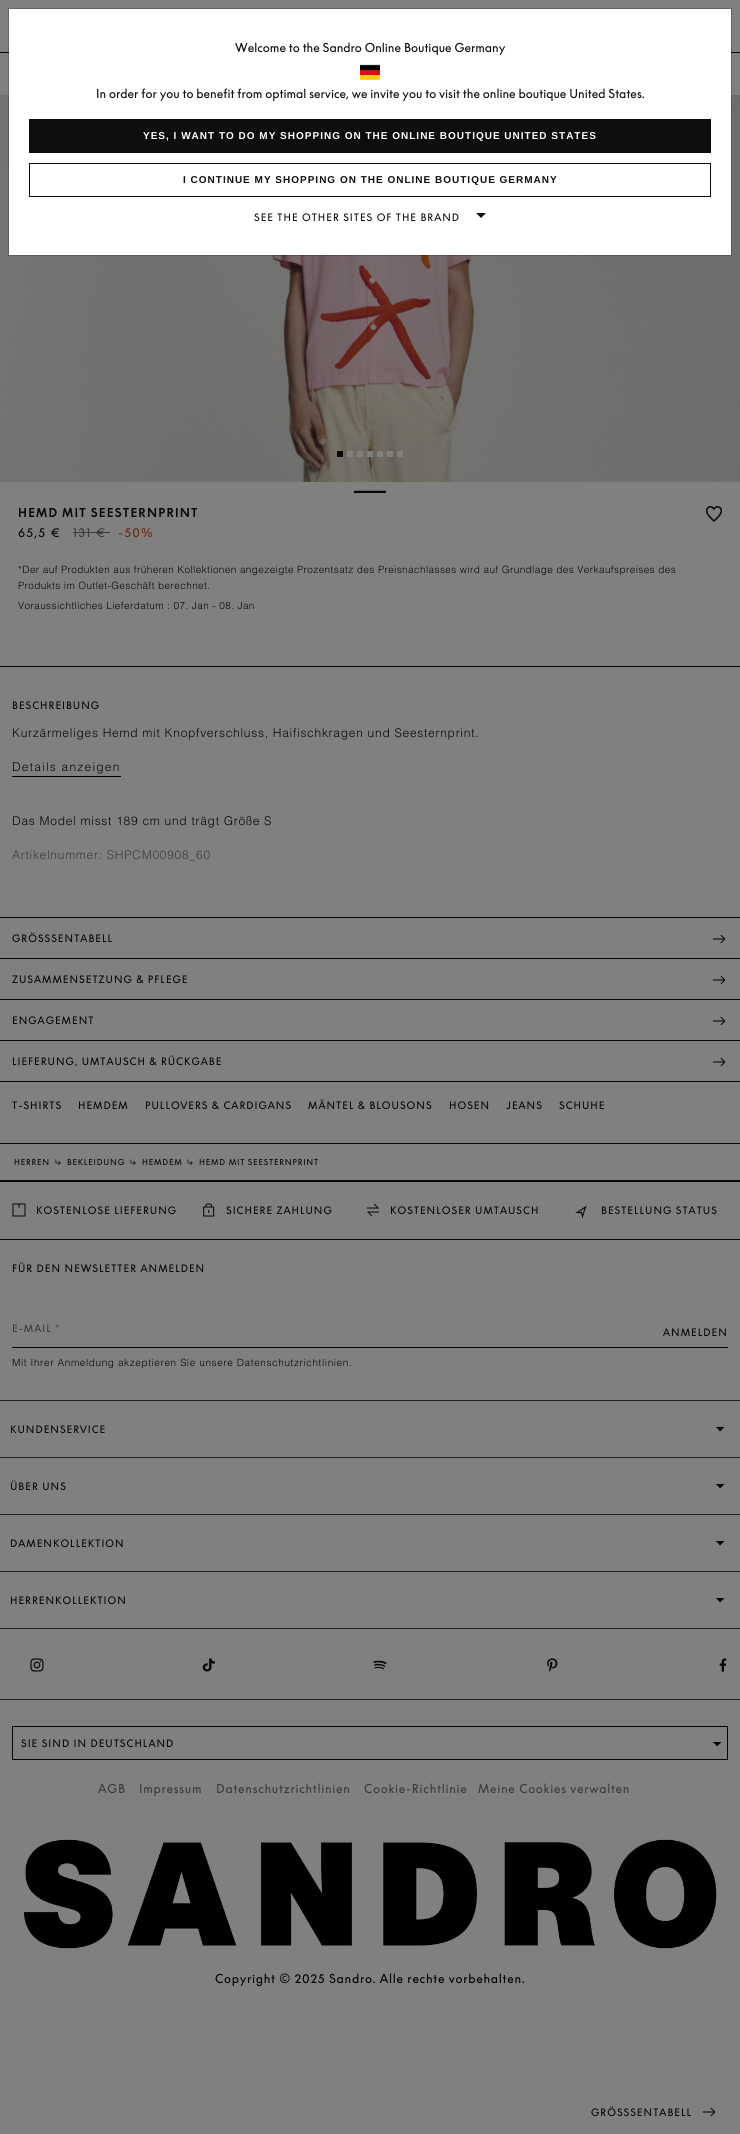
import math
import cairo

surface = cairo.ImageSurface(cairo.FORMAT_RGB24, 740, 2134)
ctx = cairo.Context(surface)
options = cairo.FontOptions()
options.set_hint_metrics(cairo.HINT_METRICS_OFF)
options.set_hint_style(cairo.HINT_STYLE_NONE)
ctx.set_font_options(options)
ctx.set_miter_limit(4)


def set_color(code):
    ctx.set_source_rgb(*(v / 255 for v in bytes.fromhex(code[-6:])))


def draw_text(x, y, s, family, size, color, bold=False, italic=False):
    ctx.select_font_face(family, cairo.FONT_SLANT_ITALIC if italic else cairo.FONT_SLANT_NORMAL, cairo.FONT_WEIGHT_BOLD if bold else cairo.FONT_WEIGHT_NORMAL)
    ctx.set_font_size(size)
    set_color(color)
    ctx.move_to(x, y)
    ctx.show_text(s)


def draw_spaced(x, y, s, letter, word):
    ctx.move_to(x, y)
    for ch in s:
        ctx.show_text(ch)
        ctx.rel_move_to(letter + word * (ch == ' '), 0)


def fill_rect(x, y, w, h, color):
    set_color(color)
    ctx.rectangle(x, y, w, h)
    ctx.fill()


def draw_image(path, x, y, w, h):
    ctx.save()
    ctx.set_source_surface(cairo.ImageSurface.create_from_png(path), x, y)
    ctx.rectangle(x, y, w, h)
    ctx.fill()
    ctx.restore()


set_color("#808080")
ctx.paint()
fill_rect(0, 52, 740, 1, "#070707")
draw_image("assets/img2.png", 0, 95, 740, 387)
fill_rect(9, 9, 722, 246, "#ffffff")
ctx.rectangle(8.5, 8.5, 723, 247)
ctx.set_source_rgba(0, 0, 0, 0.2)
ctx.set_line_width(1)
ctx.stroke()
draw_text(235, 52, "Welcome to the Sandro Online Boutique Germany", "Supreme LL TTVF", 12, "#0e0e0e")
draw_image("assets/img1.png", 360, 64, 20, 16)
draw_text(96, 98, "In order for you to benefit from optimal service, we invite you to visit the online boutique United States.", "Supreme LL TTVF", 12, "#0e0e0e")
fill_rect(29, 119, 682, 34, "#0e0e0e")
ctx.select_font_face("Liberation Sans", cairo.FONT_SLANT_NORMAL, cairo.FONT_WEIGHT_BOLD)
ctx.set_font_size(10)
set_color("#ffffff")
draw_spaced(143, 139, "YES, I WANT TO DO MY SHOPPING ON THE ONLINE BOUTIQUE UNITED STATES", 1, 0)
ctx.rectangle(29.5, 163.5, 681, 33)
set_color("#0e0e0e")
ctx.stroke()
draw_spaced(183, 183, "I CONTINUE MY SHOPPING ON THE ONLINE BOUTIQUE GERMANY", 1, 0)
ctx.select_font_face("Supreme LL TTVF")
draw_spaced(254, 221, "SEE THE OTHER SITES OF THE BRAND", 1, 0)
ctx.new_path()
ctx.move_to(476, 213)
ctx.line_to(486, 213)
ctx.line_to(481, 218)
ctx.close_path()
ctx.fill()
fill_rect(337, 451, 6, 6, "#070707")
fill_rect(347, 451, 6, 6, "#808080")
fill_rect(357, 451, 6, 6, "#808080")
fill_rect(367, 451, 6, 6, "#808080")
fill_rect(377, 451, 6, 6, "#808080")
fill_rect(387, 451, 6, 6, "#808080")
fill_rect(397, 451, 6, 6, "#808080")
fill_rect(354, 491, 32, 2, "#070707")
fill_rect(354, 490, 32, 1, "#666666")
ctx.select_font_face("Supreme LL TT", cairo.FONT_SLANT_NORMAL, cairo.FONT_WEIGHT_BOLD)
ctx.set_font_size(12)
set_color("#070707")
draw_spaced(18, 517, "HEMD MIT SEESTERNPRINT", 1.2, 0)
draw_image("assets/img3.png", 706, 506, 16, 16)
ctx.select_font_face("Supreme LL TTVF")
draw_spaced(18, 537, "65,5 €", 1.2, 0)
set_color("#3b3b3b")
draw_spaced(73, 537, "131 €", 1.2, 0)
fill_rect(73, 532, 37, 1, "#3b3b3b")
set_color("#6d2508")
draw_spaced(118, 537, "-50%", 1.2, 0)
ctx.select_font_face("Helvetica Light")
ctx.set_font_size(10)
set_color("#070707")
draw_spaced(18, 573, "*Der auf Produkten aus früheren Kollektionen angezeigte Prozentsatz des Preisnachlasses wird auf Grundlage des Verkaufspreises des", 0.4, 0)
draw_spaced(18, 589, "Produkts im Outlet-Geschäft berechnet.", 0.4, 0)
draw_spaced(18, 609, "Voraussichtliches Lieferdatum : 07. Jan - 08. Jan", 0.4, 0)
fill_rect(0, 666, 740, 1, "#070707")
ctx.select_font_face("Supreme LL TTVF")
draw_spaced(12, 709, "BESCHREIBUNG", 1, 0)
fill_rect(0, 917, 740, 1, "#070707")
ctx.select_font_face("Helvetica Light")
ctx.set_font_size(12)
draw_spaced(12, 737, "Kurzärmeliges Hemd mit Knopfverschluss, Haifischkragen und Seesternprint.", 0.72, 0)
draw_spaced(12, 771, "Details anzeigen", 1.2, 0)
fill_rect(12, 776, 109, 1, "#000000")
set_color("#070707")
draw_spaced(12, 825, "Das Model misst 189 cm und trägt Größe S", 0.72, 0)
set_color("#3b3b3b")
draw_spaced(12, 859, "Artikelnummer: SHPCM00908_60", 0.72, 0)
ctx.select_font_face("Supreme LL TTVF")
ctx.set_font_size(10)
set_color("#070707")
draw_spaced(591, 2116, "GRÖSSSENTABELL", 1, 0)
draw_image("assets/img4.png", 702, 2107, 14, 10)
fill_rect(0, 958, 740, 1, "#070707")
draw_spaced(12, 942, "GRÖSSSENTABELL", 1, 0)
draw_image("assets/img4.png", 712, 934, 14, 10)
fill_rect(0, 999, 740, 1, "#070707")
draw_spaced(12, 983, "ZUSAMMENSETZUNG & PFLEGE", 1, 0)
draw_image("assets/img4.png", 712, 975, 14, 10)
fill_rect(0, 1040, 740, 1, "#070707")
draw_spaced(12, 1024, "ENGAGEMENT", 1, 0)
draw_image("assets/img4.png", 712, 1016, 14, 10)
fill_rect(0, 1081, 740, 1, "#070707")
draw_spaced(12, 1065, "LIEFERUNG, UMTAUSCH & RÜCKGABE", 1, 0)
draw_image("assets/img4.png", 712, 1057, 14, 10)
draw_spaced(12, 1109, "T-SHIRTS", 1, 0)
draw_spaced(78, 1109, "HEMDEM", 1, 0)
draw_spaced(145, 1109, "PULLOVERS & CARDIGANS", 1, 0)
draw_spaced(308, 1109, "MÄNTEL & BLOUSONS", 1, 0)
draw_spaced(449, 1109, "HOSEN", 1, 0)
draw_spaced(506, 1109, "JEANS", 1, 0)
draw_spaced(559, 1109, "SCHUHE", 1, 0)
fill_rect(0, 1143, 740, 1, "#070707")
fill_rect(0, 1180, 740, 2, "#070707")
ctx.set_font_size(8)
draw_spaced(14, 1165, "HERREN", 0.8, 0)
draw_text(55, 1165, "↳", "Supreme LL TTVF", 8, "#070707")
draw_spaced(67, 1165, "BEKLEIDUNG", 0.8, 0)
draw_text(130, 1165, "↳", "Supreme LL TTVF", 8, "#070707")
draw_spaced(142, 1165, "HEMDEM", 0.8, 0)
draw_text(187, 1165, "↳", "Supreme LL TTVF", 8, "#070707")
draw_spaced(199, 1165, "HEMD MIT SEESTERNPRINT", 0.8, 0)
fill_rect(0, 1239, 740, 1, "#070707")
draw_image("assets/img5.png", 12, 1203, 14, 14)
ctx.set_font_size(10)
draw_spaced(36, 1214, "KOSTENLOSE LIEFERUNG", 1, 0)
draw_image("assets/img6.png", 203, 1203, 12, 14)
draw_spaced(226, 1214, "SICHERE ZAHLUNG", 1, 0)
ctx.new_path()
ctx.move_to(367, 1208)
ctx.line_to(378, 1208)
ctx.line_to(374, 1204)
ctx.move_to(379, 1212)
ctx.line_to(368, 1212)
ctx.line_to(372, 1216)
ctx.stroke()
draw_spaced(390, 1214, "KOSTENLOSER UMTAUSCH", 1, 0)
ctx.new_path()
ctx.move_to(581.5, 1213)
ctx.line_to(581.5, 1212.5)
ctx.line_to(577, 1212.5)
ctx.line_to(585.5, 1207)
ctx.line_to(582.5, 1216.5)
ctx.close_path()
ctx.set_line_width(1.1)
ctx.stroke()
draw_spaced(601, 1214, "BESTELLUNG STATUS", 1, 0)
fill_rect(0, 1400, 740, 1, "#222222")
set_color("#070707")
draw_spaced(12, 1272, "FÜR DEN NEWSLETTER ANMELDEN", 1, 0)
set_color("#3b3b3b")
draw_spaced(12, 1332, "E-MAIL", 1, 0)
set_color("#555555")
draw_spaced(55, 1332, "*", 1, 0)
set_color("#070707")
draw_spaced(663, 1336, "ANMELDEN", 1, 0)
fill_rect(12, 1347, 716, 1, "#070707")
ctx.select_font_face("Helvetica Light")
draw_spaced(12, 1366, "Mit Ihrer Anmeldung akzeptieren Sie unsere Datenschutzrichtlinien.", 0.6, 0)
fill_rect(0, 1457, 740, 1, "#222222")
ctx.select_font_face("Supreme LL TTVF")
set_color("#070707")
draw_spaced(10, 1433, "KUNDENSERVICE", 1, 0)
ctx.new_path()
ctx.move_to(718, 1429)
ctx.line_to(720, 1431.5)
ctx.line_to(724.5, 1427)
ctx.line_to(715.5, 1427)
ctx.close_path()
ctx.fill()
fill_rect(0, 1514, 740, 1, "#222222")
set_color("#070707")
draw_spaced(10, 1490, "ÜBER UNS", 1, 0)
ctx.new_path()
ctx.move_to(718, 1486)
ctx.line_to(720, 1488.5)
ctx.line_to(724.5, 1484)
ctx.line_to(715.5, 1484)
ctx.close_path()
ctx.fill()
fill_rect(0, 1571, 740, 1, "#222222")
set_color("#070707")
draw_spaced(10, 1547, "DAMENKOLLEKTION", 1, 0)
ctx.new_path()
ctx.move_to(718, 1543)
ctx.line_to(720, 1545.5)
ctx.line_to(724.5, 1541)
ctx.line_to(715.5, 1541)
ctx.close_path()
ctx.fill()
fill_rect(0, 1628, 740, 1, "#222222")
set_color("#070707")
draw_spaced(10, 1604, "HERRENKOLLEKTION", 1, 0)
ctx.new_path()
ctx.move_to(718, 1600)
ctx.line_to(720, 1602.5)
ctx.line_to(724.5, 1598)
ctx.line_to(715.5, 1598)
ctx.close_path()
ctx.fill()
fill_rect(0, 1699, 740, 1, "#222222")
draw_image("assets/img7.png", 30, 1658, 14, 14)
draw_image("assets/img8.png", 202, 1658, 13, 14)
draw_image("assets/img9.png", 373, 1660, 14, 10)
draw_image("assets/img10.png", 547, 1658, 11, 14)
draw_image("assets/img11.png", 719, 1658, 8, 14)
ctx.rectangle(12.5, 1726.5, 715, 33)
set_color("#070707")
ctx.set_line_width(1)
ctx.stroke()
draw_spaced(21, 1747, "SIE SIND IN DEUTSCHLAND", 1, 0)
ctx.new_path()
ctx.move_to(715, 1744)
ctx.line_to(717, 1746.5)
ctx.line_to(721.5, 1742)
ctx.line_to(712.5, 1742)
ctx.close_path()
ctx.fill()
ctx.set_font_size(12)
set_color("#3b3b3b")
draw_spaced(98, 1793, "AGB", 0.72, 0)
draw_spaced(139, 1793, "Impressum", 0.72, 0)
draw_spaced(216, 1793, "Datenschutzrichtlinien", 0.72, 0)
draw_spaced(364, 1793, "Cookie-Richtlinie", 0.72, 0)
draw_spaced(478, 1793, "Meine Cookies verwalten", 0.72, 0)
draw_image("assets/img12.png", 23, 1839, 694, 110)
set_color("#000000")
draw_spaced(215, 1983, "Copyright © 2025 Sandro. Alle rechte vorbehalten.", 0.72, 0)
surface.write_to_png("output.png")
